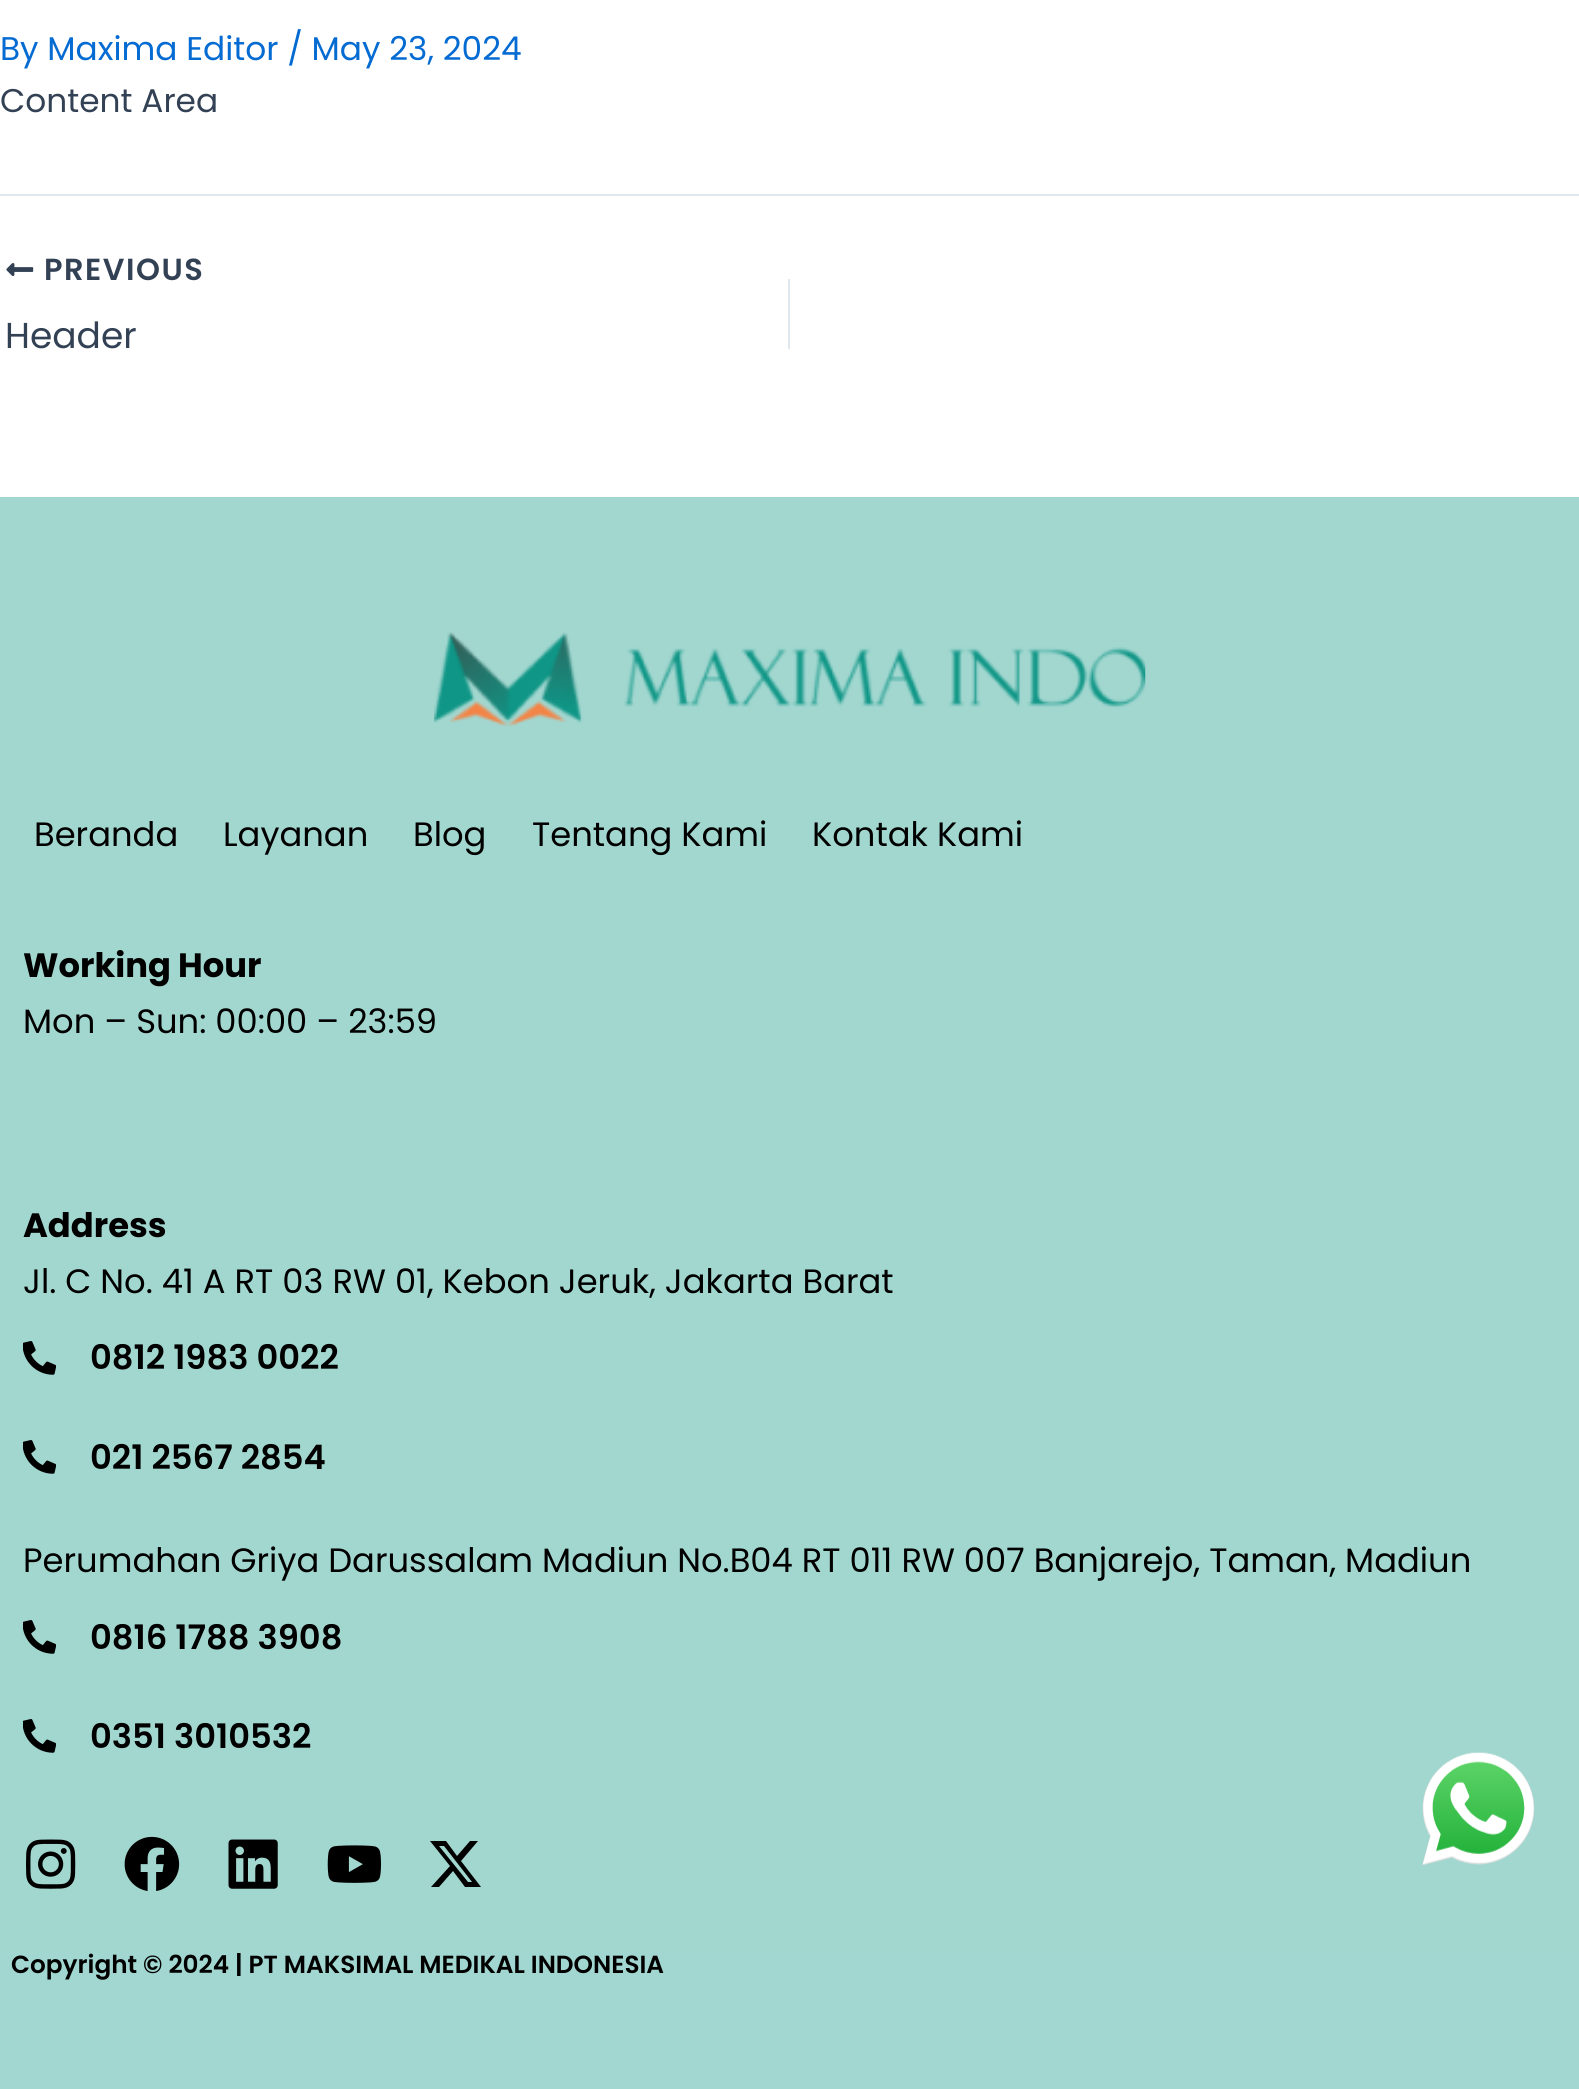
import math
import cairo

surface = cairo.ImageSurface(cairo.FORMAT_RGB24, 1579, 2089)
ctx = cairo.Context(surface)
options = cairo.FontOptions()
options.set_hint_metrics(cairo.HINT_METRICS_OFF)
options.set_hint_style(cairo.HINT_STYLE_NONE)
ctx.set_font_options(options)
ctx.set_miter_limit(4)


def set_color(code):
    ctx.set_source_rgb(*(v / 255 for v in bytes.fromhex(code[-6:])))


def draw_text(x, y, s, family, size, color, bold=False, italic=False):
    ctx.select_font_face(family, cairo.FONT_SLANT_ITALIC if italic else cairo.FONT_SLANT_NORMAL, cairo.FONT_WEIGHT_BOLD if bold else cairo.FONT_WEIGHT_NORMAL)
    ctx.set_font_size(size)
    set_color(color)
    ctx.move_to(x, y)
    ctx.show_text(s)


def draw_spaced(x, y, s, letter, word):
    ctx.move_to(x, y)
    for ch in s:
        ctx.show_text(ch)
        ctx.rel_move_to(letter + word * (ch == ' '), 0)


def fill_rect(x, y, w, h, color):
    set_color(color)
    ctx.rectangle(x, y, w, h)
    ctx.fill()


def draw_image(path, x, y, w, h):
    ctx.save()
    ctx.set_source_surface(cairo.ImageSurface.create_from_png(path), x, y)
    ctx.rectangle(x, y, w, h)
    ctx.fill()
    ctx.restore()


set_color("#ffffff")
ctx.paint()
draw_text(0, 60, "By Maxima Editor / May 23, 2024", "Poppins", 32.8, "#046bd2")
draw_text(0, 112, "Content Area", "Poppins", 32.8, "#334155")
fill_rect(0, 194, 1579, 2, "#e1e8ed")
draw_image("assets/img1.png", 6, 263, 28, 14)
ctx.select_font_face("Poppins SemiBold")
ctx.set_font_size(30.5)
set_color("#334155")
draw_spaced(44, 280, "PREVIOUS", 1.5, 0)
draw_text(5, 348, "Header", "Poppins", 36, "#334155")
fill_rect(788, 279, 2, 70, "#e1e8ed")
fill_rect(0, 497, 1579, 1456, "#a2d7d0")
draw_image("assets/img2.png", 434, 632, 712, 95)
draw_text(34, 846, "Beranda", "Poppins", 33.75, "#000000")
draw_text(223, 846, "Layanan", "Poppins", 33.75, "#000000")
draw_text(413, 846, "Blog", "Poppins", 33.75, "#000000")
draw_text(532, 846, "Tentang Kami", "Poppins", 33.75, "#000000")
draw_text(812, 846, "Kontak Kami", "Poppins", 33.75, "#000000")
draw_text(23, 977, "Working Hour", "Poppins", 33.75, "#000000", bold=True)
draw_text(23, 1033, "Mon – Sun: 00:00 – 23:59", "Poppins", 33.75, "#000000")
draw_text(23, 1237, "Address", "Poppins", 33.75, "#000000", bold=True)
draw_text(23, 1293, "Jl. C No. 41 A RT 03 RW 01, Kebon Jeruk, Jakarta Barat", "Poppins", 33.75, "#000000")
draw_image("assets/img3.png", 23, 1341, 33, 34)
draw_text(90, 1369, "0812 1983 0022", "Poppins SemiBold", 33.75, "#000000")
draw_image("assets/img3.png", 23, 1440, 33, 34)
draw_text(90, 1469, "021 2567 2854", "Poppins SemiBold", 33.75, "#000000")
draw_text(23, 1572, "Perumahan Griya Darussalam Madiun No.B04 RT 011 RW 007 Banjarejo, Taman, Madiun", "Poppins", 33.75, "#000000")
draw_image("assets/img3.png", 23, 1620, 33, 34)
draw_text(90, 1649, "0816 1788 3908", "Poppins SemiBold", 33.75, "#000000")
draw_image("assets/img3.png", 23, 1719, 33, 34)
draw_text(90, 1748, "0351 3010532", "Poppins SemiBold", 33.75, "#000000")
draw_image("assets/img4.png", 26, 1839, 50, 50)
draw_image("assets/img5.png", 124, 1836, 56, 55)
draw_image("assets/img6.png", 228, 1839, 50, 50)
draw_image("assets/img7.png", 327, 1845, 55, 38)
ctx.new_path()
ctx.move_to(470, 1841)
ctx.line_to(478, 1841)
ctx.line_to(461, 1861)
ctx.line_to(481, 1887)
ctx.line_to(465, 1887)
ctx.line_to(453, 1871)
ctx.line_to(439, 1887)
ctx.line_to(431, 1887)
ctx.line_to(450, 1866)
ctx.line_to(430, 1841)
ctx.line_to(446, 1841)
ctx.line_to(457, 1856)
ctx.close_path()
ctx.move_to(468, 1882)
ctx.line_to(472, 1882)
ctx.line_to(444, 1846)
ctx.line_to(439, 1846)
ctx.close_path()
ctx.fill()
fill_rect(0, 1953, 1579, 136, "#a2d6d0")
draw_text(11, 1973, "Copyright © 2024 | PT MAKSIMAL MEDIKAL INDONESIA", "Poppins SemiBold", 24.75, "#000000")
draw_image("assets/img8.png", 1422, 1752, 113, 114)
surface.write_to_png("output.png")
